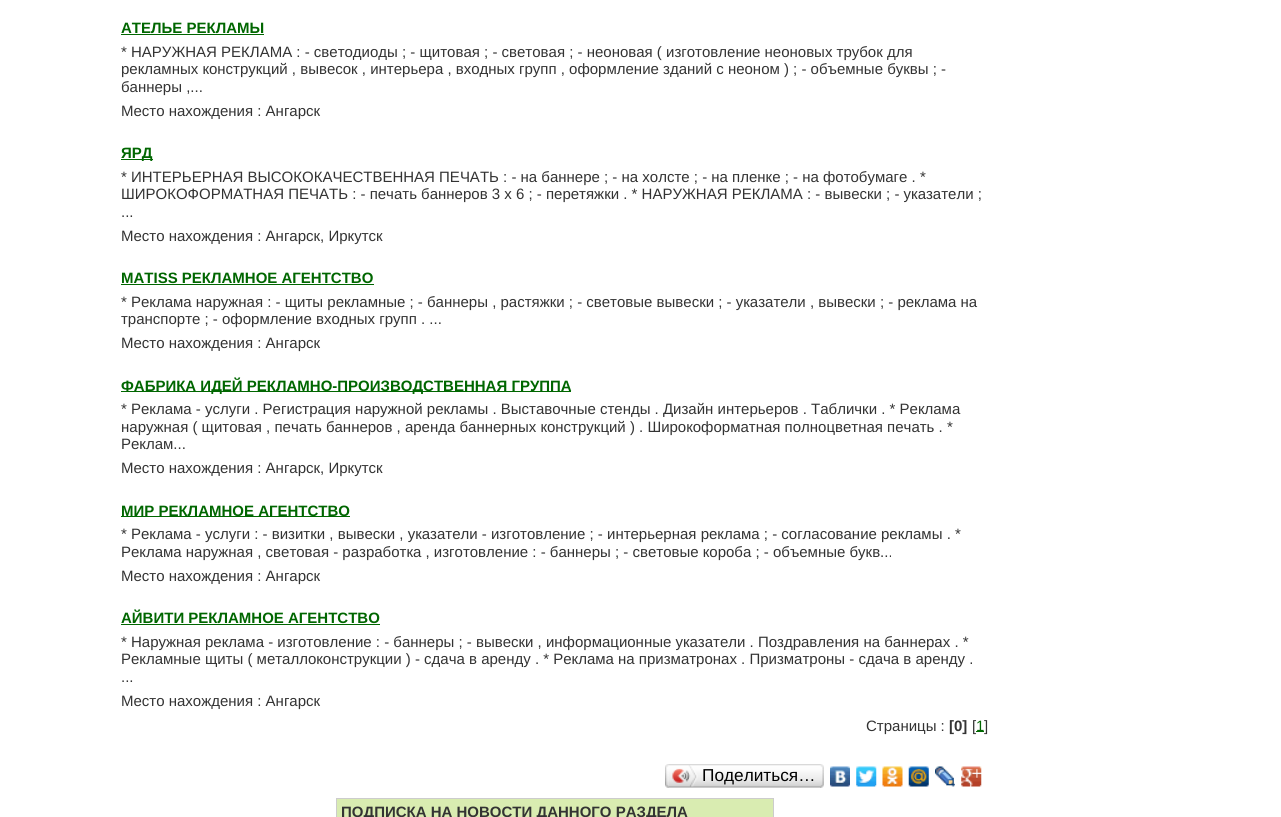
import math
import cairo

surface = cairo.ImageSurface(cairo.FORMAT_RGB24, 1281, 817)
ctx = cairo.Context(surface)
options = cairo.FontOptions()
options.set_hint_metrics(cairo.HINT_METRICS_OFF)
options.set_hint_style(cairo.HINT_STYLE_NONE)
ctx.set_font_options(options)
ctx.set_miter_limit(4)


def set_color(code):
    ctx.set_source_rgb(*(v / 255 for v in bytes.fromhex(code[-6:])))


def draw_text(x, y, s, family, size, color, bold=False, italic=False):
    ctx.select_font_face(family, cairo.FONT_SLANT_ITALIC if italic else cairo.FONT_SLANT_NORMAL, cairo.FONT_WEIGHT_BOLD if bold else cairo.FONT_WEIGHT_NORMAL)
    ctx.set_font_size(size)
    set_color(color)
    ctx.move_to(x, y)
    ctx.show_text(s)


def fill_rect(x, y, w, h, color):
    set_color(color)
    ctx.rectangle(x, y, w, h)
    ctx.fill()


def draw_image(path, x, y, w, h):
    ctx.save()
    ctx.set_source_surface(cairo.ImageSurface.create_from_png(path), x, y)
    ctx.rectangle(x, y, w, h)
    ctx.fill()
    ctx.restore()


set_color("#ffffff")
ctx.paint()
draw_text(121, 33, "АТЕЛЬЕ РЕКЛАМЫ", "Liberation Sans", 15, "#006600", bold=True)
fill_rect(121, 34, 143, 1, "#006600")
draw_text(121, 57, "* НАРУЖНАЯ РЕКЛАМА : - светодиоды ; - щитовая ; - световая ; - неоновая ( изготовление неоновых трубок для", "Liberation Sans", 15, "#333333")
draw_text(121, 74, "рекламных конструкций , вывесок , интерьера , входных групп , оформление зданий с неоном ) ; - объемные буквы ; -", "Liberation Sans", 15, "#333333")
draw_text(121, 92, "баннеры ,...", "Liberation Sans", 15, "#333333")
draw_text(121, 116, "Место нахождения : Ангарск", "Liberation Sans", 15, "#333333")
fill_rect(121, 159, 32, 1, "#006600")
draw_text(121, 158, "ЯРД", "Liberation Sans", 15, "#006600", bold=True)
draw_text(121, 182, "* ИНТЕРЬЕРНАЯ ВЫСОКОКАЧЕСТВЕННАЯ ПЕЧАТЬ : - на баннере ; - на холсте ; - на пленке ; - на фотобумаге . *", "Liberation Sans", 15, "#333333")
draw_text(121, 199, "ШИРОКОФОРМАТНАЯ ПЕЧАТЬ : - печать баннеров 3 х 6 ; - перетяжки . * НАРУЖНАЯ РЕКЛАМА : - вывески ; - указатели ;", "Liberation Sans", 15, "#333333")
draw_text(121, 217, "...", "Liberation Sans", 15, "#333333")
draw_text(121, 241, "Место нахождения : Ангарск, Иркутск", "Liberation Sans", 15, "#333333")
draw_text(121, 283, "MATISS РЕКЛАМНОЕ АГЕНТСТВО", "Liberation Sans", 15, "#006600", bold=True)
fill_rect(121, 284, 253, 1, "#006600")
draw_text(121, 307, "* Реклама наружная : - щиты рекламные ; - баннеры , растяжки ; - световые вывески ; - указатели , вывески ; - реклама на", "Liberation Sans", 15, "#333333")
draw_text(121, 324, "транспорте ; - оформление входных групп . ...", "Liberation Sans", 15, "#333333")
draw_text(121, 348, "Место нахождения : Ангарск", "Liberation Sans", 15, "#333333")
fill_rect(121, 391, 450, 1, "#006600")
draw_text(121, 391, "ФАБРИКА ИДЕЙ РЕКЛАМНО-ПРОИЗВОДСТВЕННАЯ ГРУППА", "Liberation Sans", 15, "#006600", bold=True)
draw_text(121, 414, "* Реклама - услуги . Регистрация наружной рекламы . Выставочные стенды . Дизайн интерьеров . Таблички . * Реклама", "Liberation Sans", 15, "#333333")
draw_text(121, 432, "наружная ( щитовая , печать баннеров , аренда баннерных конструкций ) . Широкоформатная полноцветная печать . *", "Liberation Sans", 15, "#333333")
draw_text(121, 449, "Реклам...", "Liberation Sans", 15, "#333333")
draw_text(121, 473, "Место нахождения : Ангарск, Иркутск", "Liberation Sans", 15, "#333333")
fill_rect(121, 516, 229, 1, "#006600")
draw_text(121, 516, "МИР РЕКЛАМНОЕ АГЕНТСТВО", "Liberation Sans", 15, "#006600", bold=True)
draw_text(121, 539, "* Реклама - услуги : - визитки , вывески , указатели - изготовление ; - интерьерная реклама ; - согласование рекламы . *", "Liberation Sans", 15, "#333333")
draw_text(121, 557, "Реклама наружная , световая - разработка , изготовление : - баннеры ; - световые короба ; - объемные букв...", "Liberation Sans", 15, "#333333")
draw_text(121, 581, "Место нахождения : Ангарск", "Liberation Sans", 15, "#333333")
draw_text(121, 623, "АЙВИТИ РЕКЛАМНОЕ АГЕНТСТВО", "Liberation Sans", 15, "#006600", bold=True)
fill_rect(121, 624, 259, 1, "#006600")
draw_text(121, 647, "* Наружная реклама - изготовление : - баннеры ; - вывески , информационные указатели . Поздравления на баннерах . *", "Liberation Sans", 15, "#333333")
draw_text(121, 664, "Рекламные щиты ( металлоконструкции ) - сдача в аренду . * Реклама на призматронах . Призматроны - сдача в аренду .", "Liberation Sans", 15, "#333333")
draw_text(121, 682, "...", "Liberation Sans", 15, "#333333")
draw_text(121, 706, "Место нахождения : Ангарск", "Liberation Sans", 15, "#333333")
draw_text(866, 731, "Страницы :", "Liberation Sans", 15, "#333333")
draw_text(949, 731, "[0]", "Liberation Sans", 15, "#333333", bold=True)
draw_text(972, 731, "[", "Liberation Sans", 15, "#333333")
draw_text(976, 731, "1", "Liberation Sans", 15, "#006600")
fill_rect(976, 731, 8, 1, "#006600")
draw_text(984, 731, "]", "Liberation Sans", 15, "#333333")
draw_image("assets/img1.png", 668, 764, 152, 24)
draw_image("assets/img2.png", 665, 764, 4, 24)
draw_image("assets/img3.png", 672, 765, 26, 22)
draw_text(702, 781, "Поделиться…", "Liberation Sans", 17.25, "#000000")
draw_image("assets/img4.png", 820, 764, 4, 24)
draw_image("assets/img5.png", 830, 766, 20, 21)
draw_image("assets/img6.png", 856, 766, 21, 21)
draw_image("assets/img7.png", 882, 766, 21, 21)
draw_image("assets/img8.png", 908, 766, 21, 21)
draw_image("assets/img9.png", 935, 766, 20, 21)
draw_image("assets/img10.png", 961, 766, 21, 21)
fill_rect(336, 798, 438, 19, "#cccccc")
fill_rect(337, 799, 436, 18, "#d9ecb1")
draw_text(341, 817, "ПОДПИСКА НА НОВОСТИ ДАННОГО РАЗДЕЛА", "Liberation Sans", 15, "#333333", bold=True)
surface.write_to_png("output.png")
